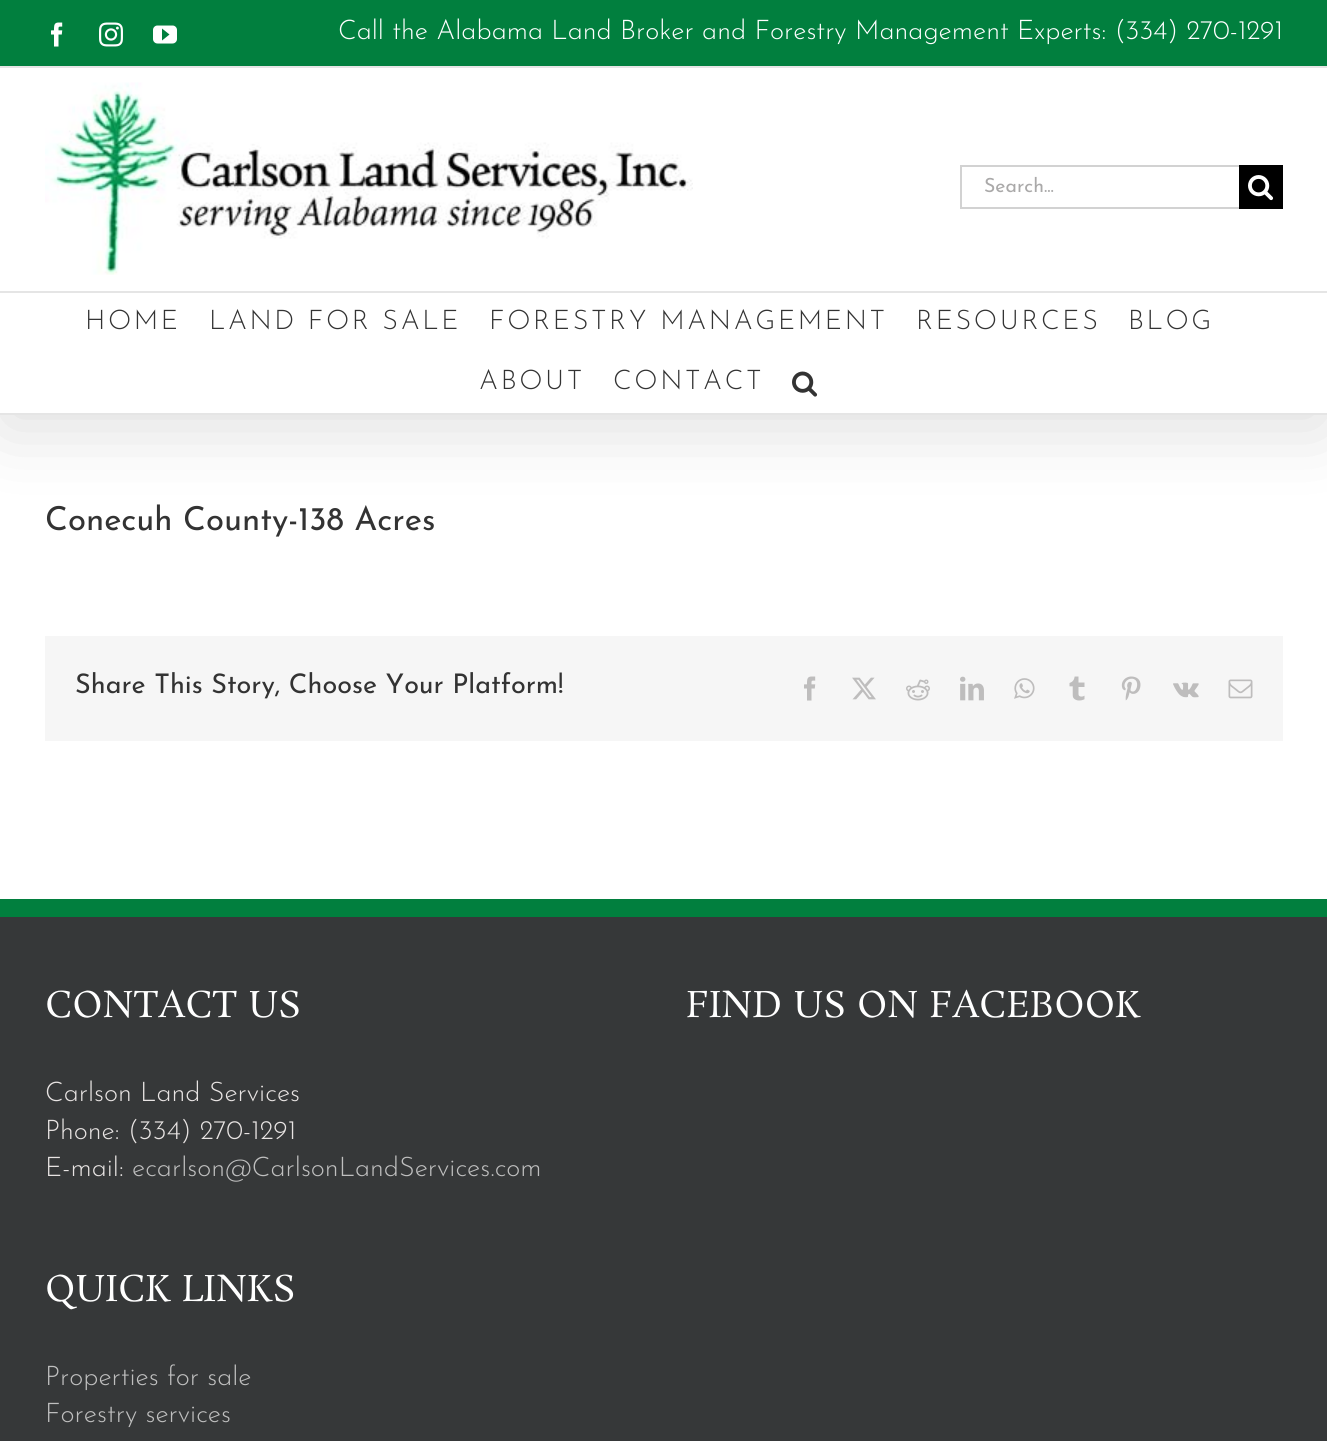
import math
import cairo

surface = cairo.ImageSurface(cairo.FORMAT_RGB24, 1327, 1441)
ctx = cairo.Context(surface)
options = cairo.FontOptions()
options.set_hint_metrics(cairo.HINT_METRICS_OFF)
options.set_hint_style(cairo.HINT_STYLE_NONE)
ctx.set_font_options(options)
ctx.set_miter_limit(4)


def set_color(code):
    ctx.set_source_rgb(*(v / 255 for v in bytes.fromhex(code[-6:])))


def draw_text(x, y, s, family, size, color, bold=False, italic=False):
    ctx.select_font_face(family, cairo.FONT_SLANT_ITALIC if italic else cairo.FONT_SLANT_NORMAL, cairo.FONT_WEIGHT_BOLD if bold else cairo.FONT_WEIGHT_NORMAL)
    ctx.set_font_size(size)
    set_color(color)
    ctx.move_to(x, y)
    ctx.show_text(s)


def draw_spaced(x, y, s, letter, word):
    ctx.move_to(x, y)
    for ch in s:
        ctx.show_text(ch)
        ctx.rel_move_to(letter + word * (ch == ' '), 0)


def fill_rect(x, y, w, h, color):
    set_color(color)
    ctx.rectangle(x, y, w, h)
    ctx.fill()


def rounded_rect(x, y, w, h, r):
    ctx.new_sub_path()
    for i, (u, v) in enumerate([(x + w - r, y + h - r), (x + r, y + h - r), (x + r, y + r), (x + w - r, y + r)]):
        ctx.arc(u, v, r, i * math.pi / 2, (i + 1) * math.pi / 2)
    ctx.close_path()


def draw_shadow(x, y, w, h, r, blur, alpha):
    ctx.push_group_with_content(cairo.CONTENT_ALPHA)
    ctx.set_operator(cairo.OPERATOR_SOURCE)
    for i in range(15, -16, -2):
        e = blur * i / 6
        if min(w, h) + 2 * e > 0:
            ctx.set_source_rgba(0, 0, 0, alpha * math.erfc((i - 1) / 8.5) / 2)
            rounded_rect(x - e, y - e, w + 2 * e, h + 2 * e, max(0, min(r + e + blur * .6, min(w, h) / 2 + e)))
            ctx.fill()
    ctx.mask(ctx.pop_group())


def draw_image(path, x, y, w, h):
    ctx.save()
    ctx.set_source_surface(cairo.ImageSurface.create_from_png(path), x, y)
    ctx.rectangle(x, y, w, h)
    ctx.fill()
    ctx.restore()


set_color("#ffffff")
ctx.paint()
set_color("#000000")
draw_shadow(3, 18, 1322, 408, 0, 37.5, 0.14)
fill_rect(0, 0, 1327, 66, "#017f3e")
fill_rect(0, 66, 1327, 2, "#e5e5e5")
draw_image("assets/img1.png", 51, 22, 12, 25)
draw_image("assets/img2.png", 99, 22, 24, 25)
draw_image("assets/img3.png", 153, 25, 24, 19)
draw_text(338, 39, "Call the Alabama Land Broker and Forestry Management Experts: (334) 270-1291", "Josefin Sans Light", 27, "#ffffff")
fill_rect(0, 68, 1327, 223, "#ffffff")
fill_rect(0, 291, 1327, 2, "#e5e5e5")
draw_image("assets/img4.png", 45, 82, 648, 193)
fill_rect(960, 165, 279, 2, "#d2d2d2")
fill_rect(960, 207, 279, 2, "#d2d2d2")
fill_rect(960, 165, 2, 44, "#d2d2d2")
draw_text(984, 192, "Search...", "Josefin Sans", 19.5, "#aaa9a9")
fill_rect(1239, 165, 44, 44, "#000000")
draw_image("assets/img5.png", 1248, 175, 26, 26)
fill_rect(0, 293, 1327, 120, "#ffffff")
fill_rect(0, 413, 1327, 2, "#e5e5e5")
ctx.select_font_face("Josefin Sans Light")
ctx.set_font_size(27)
set_color("#333333")
draw_spaced(85, 329, "HOME", 2.6, 0)
draw_spaced(209, 329, "LAND FOR SALE", 2.6, 0)
draw_spaced(489, 329, "FORESTRY MANAGEMENT", 2.6, 0)
draw_spaced(916, 329, "RESOURCES", 2.6, 0)
draw_spaced(1128, 329, "BLOG", 2.6, 0)
draw_spaced(479, 389, "ABOUT", 2.6, 0)
draw_spaced(613, 389, "CONTACT", 2.6, 0)
draw_image("assets/img6.png", 792, 371, 26, 26)
draw_text(45, 530, "Conecuh County-138 Acres", "Josefin Sans", 33, "#333333")
fill_rect(45, 636, 1238, 105, "#f6f6f6")
draw_text(75, 693, "Share This Story, Choose Your Platform!", "Josefin Sans", 27, "#333333")
draw_image("assets/img7.png", 804, 676, 12, 25)
draw_image("assets/img8.png", 852, 677, 24, 23)
draw_image("assets/img9.png", 906, 679, 24, 22)
draw_image("assets/img10.png", 960, 676, 24, 25)
draw_image("assets/img11.png", 1014, 678, 21, 21)
draw_image("assets/img12.png", 1069, 676, 16, 25)
draw_image("assets/img13.png", 1121, 676, 20, 25)
draw_image("assets/img14.png", 1173, 682, 26, 16)
draw_image("assets/img15.png", 1228, 679, 25, 20)
fill_rect(0, 917, 1327, 524, "#363839")
fill_rect(0, 899, 1327, 18, "#017f3e")
draw_text(45, 1017, "CONTACT US", "Rosarivo", 36, "#ffffff")
draw_text(45, 1101, "Carlson Land Services", "Josefin Sans Light", 27, "#e8e4e3")
draw_text(45, 1139, "Phone: (334) 270-1291", "Josefin Sans Light", 27, "#e8e4e3")
draw_text(45, 1176, "E-mail:", "Josefin Sans Light", 27, "#e8e4e3")
draw_text(132, 1176, "ecarlson@CarlsonLandServices.com", "Josefin Sans Light", 27, "#bfbfbf")
draw_text(45, 1301, "QUICK LINKS", "Rosarivo", 36, "#ffffff")
draw_text(45, 1385, "Properties for sale", "Josefin Sans Light", 27, "#bfbfbf")
draw_text(45, 1422, "Forestry services", "Josefin Sans Light", 27, "#bfbfbf")
draw_text(686, 1017, "FIND US ON FACEBOOK", "Rosarivo", 36, "#ffffff")
surface.write_to_png("output.png")
